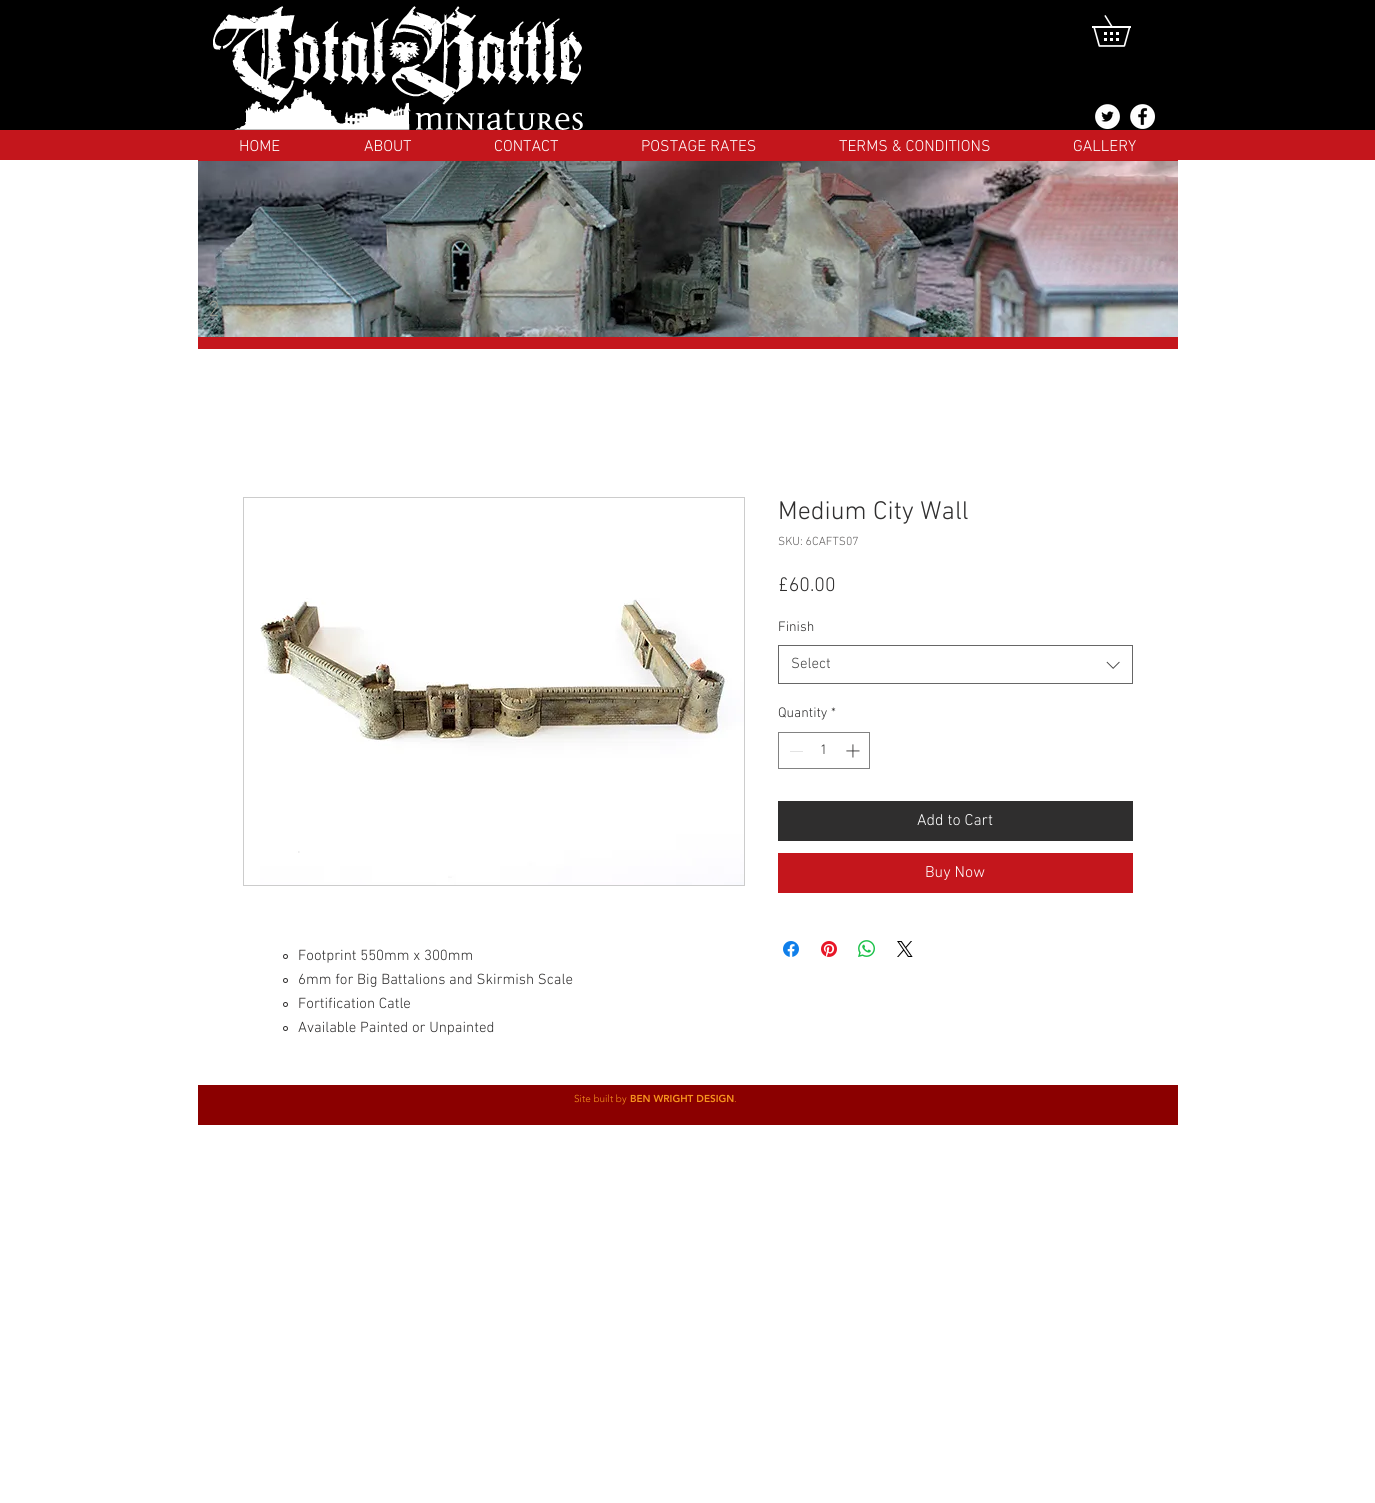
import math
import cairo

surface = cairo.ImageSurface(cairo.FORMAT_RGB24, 1375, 1503)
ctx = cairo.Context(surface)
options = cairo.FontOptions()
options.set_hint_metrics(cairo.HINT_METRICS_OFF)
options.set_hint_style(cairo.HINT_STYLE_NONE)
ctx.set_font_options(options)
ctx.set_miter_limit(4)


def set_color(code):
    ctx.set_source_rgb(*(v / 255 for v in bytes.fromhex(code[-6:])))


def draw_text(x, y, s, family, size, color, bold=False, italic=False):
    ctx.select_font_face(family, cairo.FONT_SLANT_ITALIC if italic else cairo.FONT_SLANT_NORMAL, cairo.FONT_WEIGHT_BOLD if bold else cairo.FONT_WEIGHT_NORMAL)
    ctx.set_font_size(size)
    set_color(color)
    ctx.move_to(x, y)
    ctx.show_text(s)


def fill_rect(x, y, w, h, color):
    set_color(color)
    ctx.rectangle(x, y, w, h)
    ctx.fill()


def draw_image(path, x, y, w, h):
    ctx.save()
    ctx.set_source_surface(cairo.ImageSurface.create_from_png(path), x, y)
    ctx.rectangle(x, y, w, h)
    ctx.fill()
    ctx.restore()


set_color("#ffffff")
ctx.paint()
draw_image("assets/img1.png", 0, 0, 1375, 160)
draw_image("assets/img2.png", 213, 6, 370, 124)
draw_image("assets/img3.png", 1092, 15, 39, 32)
draw_image("assets/img4.png", 1095, 104, 25, 25)
draw_image("assets/img5.png", 1130, 104, 25, 25)
fill_rect(198, 160, 980, 1, "#c4161c")
draw_text(239, 151, "HOME", "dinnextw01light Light", 16, "#ffffff")
draw_text(364, 151, "ABOUT", "dinnextw01light Light", 16, "#ffffff")
draw_text(494, 151, "CONTACT", "dinnextw01light Light", 16, "#ffffff")
draw_text(641, 151, "POSTAGE RATES", "dinnextw01light Light", 16, "#ffffff")
draw_text(839, 151, "TERMS & CONDITIONS", "dinnextw01light Light", 16, "#ffffff")
draw_text(1073, 151, "GALLERY", "dinnextw01light Light", 16, "#ffffff")
draw_image("assets/img6.png", 198, 161, 980, 176)
draw_text(208, 316, "2", "dinnextw01light Light", 22, "#97998e")
fill_rect(198, 337, 980, 12, "#c4161c")
draw_text(778, 519, "Medium City Wall", "dinnextw01light Light", 26, "#2f2e2e")
draw_text(778, 545, "SKU: 6CAFTS07", "dinnextw01light Light", 12, "#605e5e")
draw_text(778, 591, "£60.00", "dinnextw01light Light", 20, "#2f2e2e")
draw_text(778, 631, "Finish", "dinnextw01light Light", 14, "#2f2e2e")
ctx.rectangle(778.5, 645.5, 354, 38)
set_color("#666666")
ctx.set_line_width(1)
ctx.stroke()
draw_text(791, 668, "Select", "dinnextw01light Light", 15, "#444444")
draw_image("assets/img7.png", 1106, 661, 14, 8)
draw_text(778, 717, "Quantity", "dinnextw01light Light", 14, "#2f2e2e")
draw_text(831, 717, "*", "dinnextw01light Light", 14, "#2f2e2e")
ctx.rectangle(778.5, 732.5, 91, 36)
set_color("#828282")
ctx.stroke()
fill_rect(790, 751, 13, 1, "#e3e3e3")
draw_text(820, 754, "1", "dinnextw01light Light", 14, "#2f2e2e")
draw_image("assets/img8.png", 846, 744, 14, 14)
fill_rect(778, 801, 355, 40, "#2f2e2e")
draw_text(917, 825, "Add to Cart", "dinnextw01light Light", 16, "#ffffff")
fill_rect(778, 853, 355, 40, "#c4161c")
draw_text(925, 877, "Buy Now", "dinnextw01light Light", 16, "#ffffff")
draw_image("assets/img9.png", 783, 941, 16, 16)
draw_image("assets/img10.png", 821, 941, 16, 16)
draw_image("assets/img11.png", 858, 940, 17, 17)
draw_image("assets/img12.png", 897, 941, 16, 16)
ctx.rectangle(243.5, 497.5, 501, 388)
set_color("#cccccc")
ctx.stroke()
draw_image("assets/img13.png", 260, 598, 484, 287)
ctx.arc(285.5, 956.5, 2, 0, 2 * math.pi)
set_color("#2f2e2e")
ctx.stroke()
draw_text(298, 960, "Footprint 550mm x 300mm", "dinnextw01light Light", 15, "#2f2e2e")
ctx.new_path()
ctx.arc(285.5, 980.5, 2, 0, 2 * math.pi)
ctx.stroke()
draw_text(298, 984, "6mm for Big Battalions and Skirmish Scale", "dinnextw01light Light", 15, "#2f2e2e")
ctx.new_path()
ctx.arc(285.5, 1004.5, 2, 0, 2 * math.pi)
ctx.stroke()
draw_text(298, 1008, "Fortification Catle", "dinnextw01light Light", 15, "#2f2e2e")
ctx.new_path()
ctx.arc(285.5, 1028.5, 2, 0, 2 * math.pi)
ctx.stroke()
draw_text(298, 1032, "Available Painted or Unpainted", "dinnextw01light Light", 15, "#2f2e2e")
fill_rect(198, 1085, 980, 40, "#8b0000")
draw_text(574, 1102, "Site built by", "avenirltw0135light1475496 Light", 10, "#f7931e")
draw_text(630, 1102, "BEN WRIGHT DESIGN", "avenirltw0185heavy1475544 Black", 10, "#f7931e")
draw_text(734, 1102, ".", "avenirltw0135light1475496 Light", 10, "#f7931e")
surface.write_to_png("output.png")
